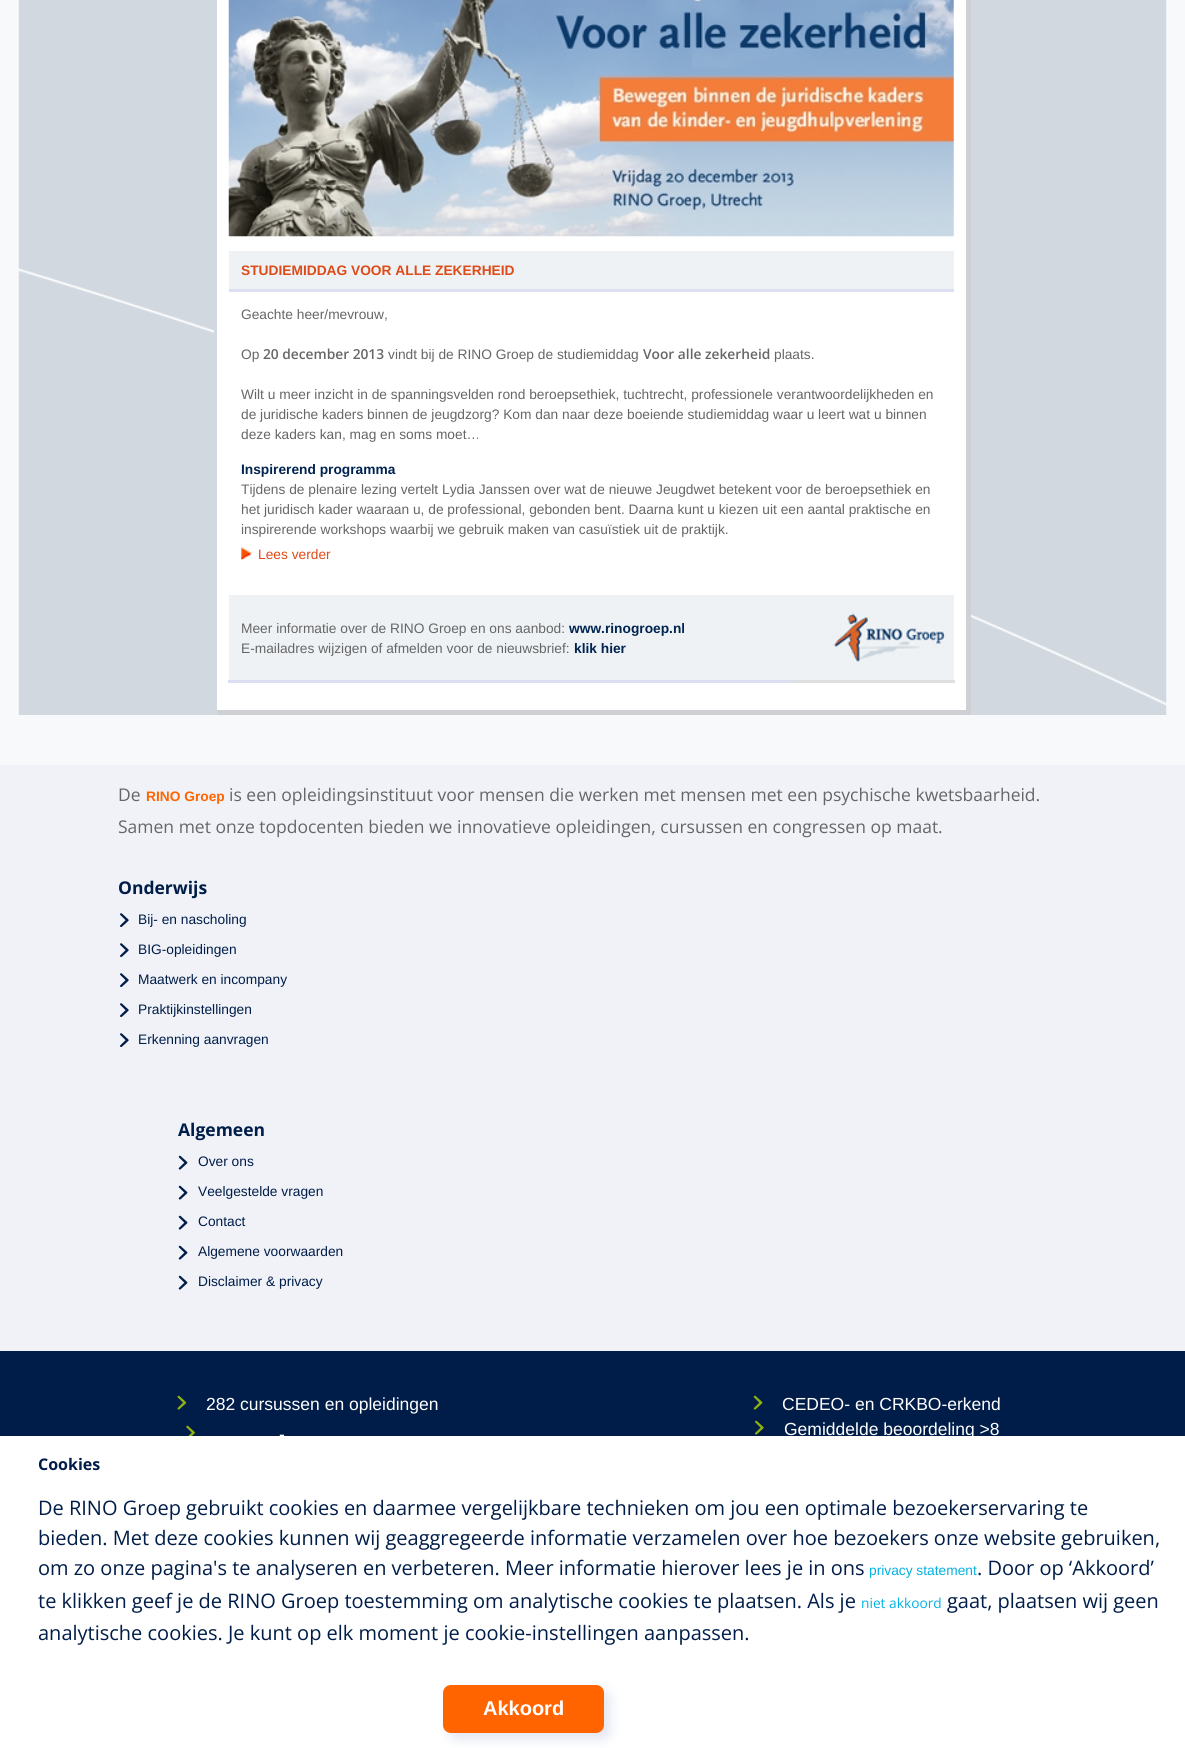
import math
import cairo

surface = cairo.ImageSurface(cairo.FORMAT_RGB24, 1185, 1748)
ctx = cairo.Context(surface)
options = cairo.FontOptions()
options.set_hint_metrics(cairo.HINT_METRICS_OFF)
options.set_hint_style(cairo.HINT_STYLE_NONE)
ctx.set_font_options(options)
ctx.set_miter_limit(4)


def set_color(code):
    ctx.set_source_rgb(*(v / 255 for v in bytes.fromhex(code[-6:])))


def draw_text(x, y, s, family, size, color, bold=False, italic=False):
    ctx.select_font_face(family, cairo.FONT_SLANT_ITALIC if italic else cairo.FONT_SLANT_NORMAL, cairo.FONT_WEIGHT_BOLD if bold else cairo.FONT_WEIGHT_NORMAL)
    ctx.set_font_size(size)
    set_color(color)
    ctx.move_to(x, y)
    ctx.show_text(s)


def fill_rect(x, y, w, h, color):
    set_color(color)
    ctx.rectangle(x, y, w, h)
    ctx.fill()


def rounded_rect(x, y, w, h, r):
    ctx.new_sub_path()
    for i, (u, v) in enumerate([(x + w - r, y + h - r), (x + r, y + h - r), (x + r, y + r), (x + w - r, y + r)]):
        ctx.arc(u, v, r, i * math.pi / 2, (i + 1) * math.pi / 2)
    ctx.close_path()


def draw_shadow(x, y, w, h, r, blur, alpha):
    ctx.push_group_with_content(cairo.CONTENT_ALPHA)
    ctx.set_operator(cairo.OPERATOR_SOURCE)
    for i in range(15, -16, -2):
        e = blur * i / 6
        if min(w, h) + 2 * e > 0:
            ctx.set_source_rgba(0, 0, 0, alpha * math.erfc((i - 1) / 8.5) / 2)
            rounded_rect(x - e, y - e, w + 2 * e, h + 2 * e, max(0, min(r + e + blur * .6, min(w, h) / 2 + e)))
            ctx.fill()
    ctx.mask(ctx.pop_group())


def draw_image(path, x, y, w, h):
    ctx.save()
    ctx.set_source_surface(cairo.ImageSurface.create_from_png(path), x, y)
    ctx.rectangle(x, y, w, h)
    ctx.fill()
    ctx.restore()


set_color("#f0f2f7")
ctx.paint()
fill_rect(0, 0, 1185, 765, "#f8f9fb")
draw_image("assets/img1.png", 18, 0, 1149, 715)
fill_rect(966, 0, 5, 715, "#cfd0d4")
fill_rect(214, 710, 757, 5, "#cfd0d4")
fill_rect(214, 330, 3, 385, "#d2d8e0")
fill_rect(217, 0, 749, 710, "#ffffff")
draw_image("assets/img2.png", 228, 0, 726, 237)
fill_rect(229, 251, 725, 38, "#eef2f4")
fill_rect(229, 289, 725, 3, "#dddef1")
draw_text(241, 275, "STUDIEMIDDAG VOOR ALLE ZEKERHEID", "Liberation Sans", 13.75, "#dd4b18", bold=True)
draw_text(241, 319, "Geachte heer/mevrouw,", "Liberation Sans", 13.75, "#666666")
draw_text(241, 359, "Op", "Liberation Sans", 13.75, "#666666")
draw_text(263, 359, "20 december 2013", "Open Sans SemiBold", 13.75, "#666666")
draw_text(388, 359, "vindt bij de RINO Groep de studiemiddag", "Liberation Sans", 13.75, "#666666")
draw_text(643, 359, "Voor alle zekerheid", "Open Sans SemiBold", 13.75, "#666666")
draw_text(774, 359, "plaats.", "Liberation Sans", 13.75, "#666666")
draw_text(241, 399, "Wilt u meer inzicht in de spanningsvelden rond beroepsethiek, tuchtrecht, professionele verantwoordelijkheden en", "Liberation Sans", 13.75, "#666666")
draw_text(241, 419, "de juridische kaders binnen de jeugdzorg? Kom dan naar deze boeiende studiemiddag waar u leert wat u binnen", "Liberation Sans", 13.75, "#666666")
draw_text(241, 439, "deze kaders kan, mag en soms moet…", "Liberation Sans", 13.75, "#666666")
draw_text(241, 474, "Inspirerend programma", "Liberation Sans", 13.75, "#002350", bold=True)
draw_text(241, 494, "Tijdens de plenaire lezing vertelt Lydia Janssen over wat de nieuwe Jeugdwet betekent voor de beroepsethiek en", "Liberation Sans", 13.75, "#666666")
draw_text(241, 514, "het juridisch kader waaraan u, de professional, gebonden bent. Daarna kunt u kiezen uit een aantal praktische en", "Liberation Sans", 13.75, "#666666")
draw_text(241, 534, "inspirerende workshops waarbij we gebruik maken van casuïstiek uit de praktijk.", "Liberation Sans", 13.75, "#666666")
draw_image("assets/img3.png", 241, 547, 11, 14)
draw_text(258, 559, "Lees verder", "Liberation Sans", 13.75, "#dd4b18")
fill_rect(229, 595, 725, 85, "#eef2f5")
fill_rect(789, 680, 166, 3, "#dddfe1")
fill_rect(228, 680, 563, 3, "#dddef1")
draw_text(241, 633, "Meer informatie over de RINO Groep en ons aanbod:", "Liberation Sans", 13.75, "#666666")
draw_text(569, 633, "www.rinogroep.nl", "Liberation Sans", 13.75, "#002350", bold=True)
draw_text(241, 653, "E-mailadres wijzigen of afmelden voor de nieuwsbrief:", "Liberation Sans", 13.75, "#666666")
draw_text(574, 653, "klik hier", "Liberation Sans", 13.75, "#002350", bold=True)
draw_image("assets/img4.png", 833, 613, 112, 49)
draw_text(118, 801, "De", "Open Sans", 17.5, "#666666")
draw_text(146, 801, "RINO Groep", "Liberation Sans", 13.75, "#ff6400", bold=True)
draw_text(229, 801, "is een opleidingsinstituut voor mensen die werken met mensen met een psychische kwetsbaarheid.", "Open Sans", 17.5, "#666666")
draw_text(118, 833, "Samen met onze topdocenten bieden we innovatieve opleidingen, cursussen en congressen op maat.", "Open Sans", 17.5, "#666666")
draw_text(118, 894, "Onderwijs", "Open Sans", 17.5, "#001d49", bold=True)
draw_image("assets/img5.png", 120, 913, 9, 14)
draw_text(138, 924, "Bij- en nascholing", "Liberation Sans", 13.75, "#001d49")
draw_image("assets/img5.png", 120, 943, 9, 14)
draw_text(138, 954, "BIG-opleidingen", "Liberation Sans", 13.75, "#001d49")
draw_image("assets/img5.png", 120, 973, 9, 14)
draw_text(138, 984, "Maatwerk en incompany", "Liberation Sans", 13.75, "#001d49")
draw_image("assets/img5.png", 120, 1003, 9, 14)
draw_text(138, 1014, "Praktijkinstellingen", "Liberation Sans", 13.75, "#001d49")
draw_image("assets/img5.png", 120, 1033, 9, 14)
draw_text(138, 1044, "Erkenning aanvragen", "Liberation Sans", 13.75, "#001d49")
draw_text(178, 1136, "Algemeen", "Open Sans", 17.5, "#001d49", bold=True)
draw_image("assets/img6.png", 178, 1155, 10, 15)
draw_text(198, 1166, "Over ons", "Liberation Sans", 13.75, "#001d49")
draw_image("assets/img6.png", 178, 1185, 10, 15)
draw_text(198, 1196, "Veelgestelde vragen", "Liberation Sans", 13.75, "#001d49")
draw_image("assets/img6.png", 178, 1215, 10, 15)
draw_text(198, 1226, "Contact", "Liberation Sans", 13.75, "#001d49")
draw_image("assets/img6.png", 178, 1245, 10, 15)
draw_text(198, 1256, "Algemene voorwaarden", "Liberation Sans", 13.75, "#001d49")
draw_image("assets/img6.png", 178, 1275, 10, 15)
draw_text(198, 1286, "Disclaimer & privacy", "Liberation Sans", 13.75, "#001d49")
fill_rect(0, 1351, 1185, 85, "#001d49")
draw_image("assets/img7.png", 177, 1395, 10, 15)
draw_text(206, 1410, "282 cursussen en opleidingen", "Liberation Sans", 17.5, "#ffffff")
draw_image("assets/img8.png", 753, 1395, 10, 15)
draw_text(782, 1410, "CEDEO- en CRKBO-erkend", "Liberation Sans", 17.5, "#ffffff")
draw_image("assets/img9.png", 186, 1425, 9, 11)
draw_text(279, 1440, "-", "Liberation Sans", 17.5, "#ffffff")
draw_image("assets/img10.png", 755, 1420, 9, 15)
draw_text(784, 1435, "Gemiddelde beoordeling >8", "Liberation Sans", 17.5, "#ffffff")
fill_rect(0, 1436, 1185, 312, "#ffffff")
draw_text(38, 1470, "Cookies", "Open Sans", 16, "#001d49", bold=True)
draw_text(38, 1515, "De RINO Groep gebruikt cookies en daarmee vergelijkbare technieken om jou een optimale bezoekerservaring te", "Open Sans", 20, "#001d49")
draw_text(38, 1545, "bieden. Met deze cookies kunnen wij geaggregeerde informatie verzamelen over hoe bezoekers onze website gebruiken,", "Open Sans", 20, "#001d49")
draw_text(38, 1575, "om zo onze pagina's te analyseren en verbeteren. Meer informatie hierover lees je in ons", "Open Sans", 20, "#001d49")
draw_text(869, 1575, "privacy statement", "Liberation Sans", 13.75, "#03b1e3")
draw_text(977, 1575, ". Door op ‘Akkoord’", "Open Sans", 20, "#001d49")
draw_text(38, 1608, "te klikken geef je de RINO Groep toestemming om analytische cookies te plaatsen. Als je", "Open Sans", 20, "#001d49")
draw_text(861, 1608, "niet akkoord", "Open Sans", 13.75, "#03b1e3")
draw_text(947, 1608, "gaat, plaatsen wij geen", "Open Sans", 20, "#001d49")
draw_text(38, 1640, "analytische cookies. Je kunt op elk moment je cookie-instellingen aanpassen.", "Open Sans", 20, "#001d49")
set_color("#cfd5e8")
draw_shadow(449, 1691, 161, 48, 8, 6, 0.6)
set_color("#ff6400")
rounded_rect(443, 1685, 161, 48, 8)
ctx.fill()
draw_text(483, 1715, "Akkoord", "Liberation Sans", 20, "#ffffff", bold=True)
surface.write_to_png("output.png")
